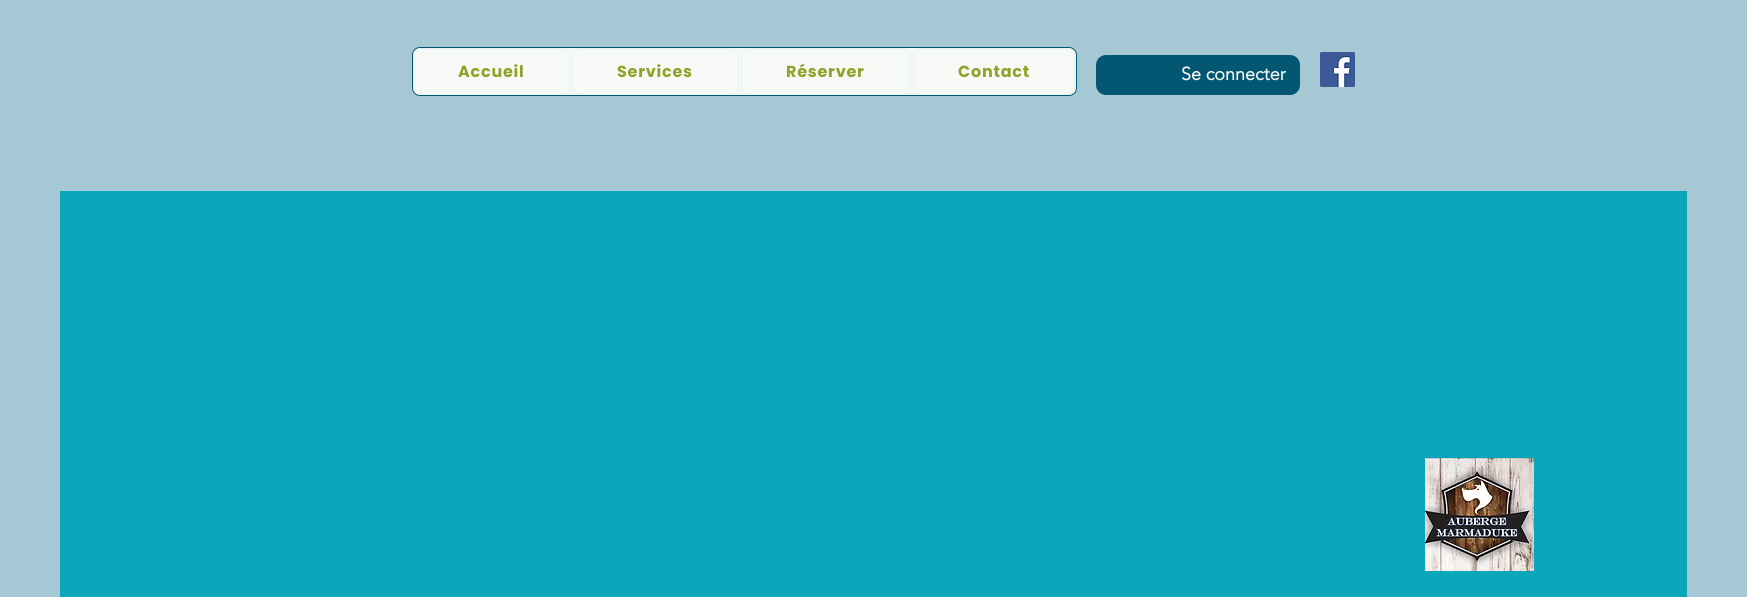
import math
import cairo

surface = cairo.ImageSurface(cairo.FORMAT_RGB24, 1747, 597)
ctx = cairo.Context(surface)
options = cairo.FontOptions()
options.set_hint_metrics(cairo.HINT_METRICS_OFF)
options.set_hint_style(cairo.HINT_STYLE_NONE)
ctx.set_font_options(options)
ctx.set_miter_limit(4)


def set_color(code):
    ctx.set_source_rgb(*(v / 255 for v in bytes.fromhex(code[-6:])))


def draw_text(x, y, s, family, size, color, bold=False, italic=False):
    ctx.select_font_face(family, cairo.FONT_SLANT_ITALIC if italic else cairo.FONT_SLANT_NORMAL, cairo.FONT_WEIGHT_BOLD if bold else cairo.FONT_WEIGHT_NORMAL)
    ctx.set_font_size(size)
    set_color(color)
    ctx.move_to(x, y)
    ctx.show_text(s)


def draw_spaced(x, y, s, letter, word):
    ctx.move_to(x, y)
    for ch in s:
        ctx.show_text(ch)
        ctx.rel_move_to(letter + word * (ch == ' '), 0)


def fill_rect(x, y, w, h, color):
    set_color(color)
    ctx.rectangle(x, y, w, h)
    ctx.fill()


def rounded_rect(x, y, w, h, r):
    ctx.new_sub_path()
    for i, (u, v) in enumerate([(x + w - r, y + h - r), (x + r, y + h - r), (x + r, y + r), (x + w - r, y + r)]):
        ctx.arc(u, v, r, i * math.pi / 2, (i + 1) * math.pi / 2)
    ctx.close_path()


def draw_image(path, x, y, w, h):
    ctx.save()
    ctx.set_source_surface(cairo.ImageSurface.create_from_png(path), x, y)
    ctx.rectangle(x, y, w, h)
    ctx.fill()
    ctx.restore()


set_color("#a5c8d4")
ctx.paint()
set_color("#f6f9f5")
rounded_rect(412.5, 47.5, 664, 48, 7.5)
ctx.fill_preserve()
set_color("#035772")
ctx.set_line_width(1)
ctx.stroke()
rounded_rect(413.5, 48.5, 156, 46, 7.5)
set_color("#e7f4f6")
ctx.stroke()
ctx.select_font_face("Poppins", cairo.FONT_SLANT_NORMAL, cairo.FONT_WEIGHT_BOLD)
ctx.set_font_size(16)
set_color("#92a127")
draw_spaced(458, 77, "Accueil", 0.75, 0)
rounded_rect(572.5, 48.5, 166, 46, 7.5)
set_color("#e7f4f6")
ctx.stroke()
set_color("#92a127")
draw_spaced(617, 77, "Services", 0.75, 0)
rounded_rect(741.5, 48.5, 169, 46, 7.5)
set_color("#e7f4f6")
ctx.stroke()
set_color("#92a127")
draw_spaced(786, 77, "Réserver", 0.75, 0)
rounded_rect(913.5, 48.5, 161, 46, 7.5)
set_color("#e7f4f6")
ctx.stroke()
set_color("#92a127")
draw_spaced(958, 77, "Contact", 0.75, 0)
set_color("#035772")
rounded_rect(1096, 55, 204, 40, 10)
ctx.fill()
draw_text(1181, 80, "Se connecter", "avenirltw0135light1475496", 18, "#f6f9f5", bold=True)
draw_image("assets/img1.png", 1320, 52, 35, 35)
fill_rect(60, 191, 1627, 406, "#09a7b9")
draw_image("assets/img2.png", 1425, 458, 109, 113)
surface.write_to_png("output.png")
